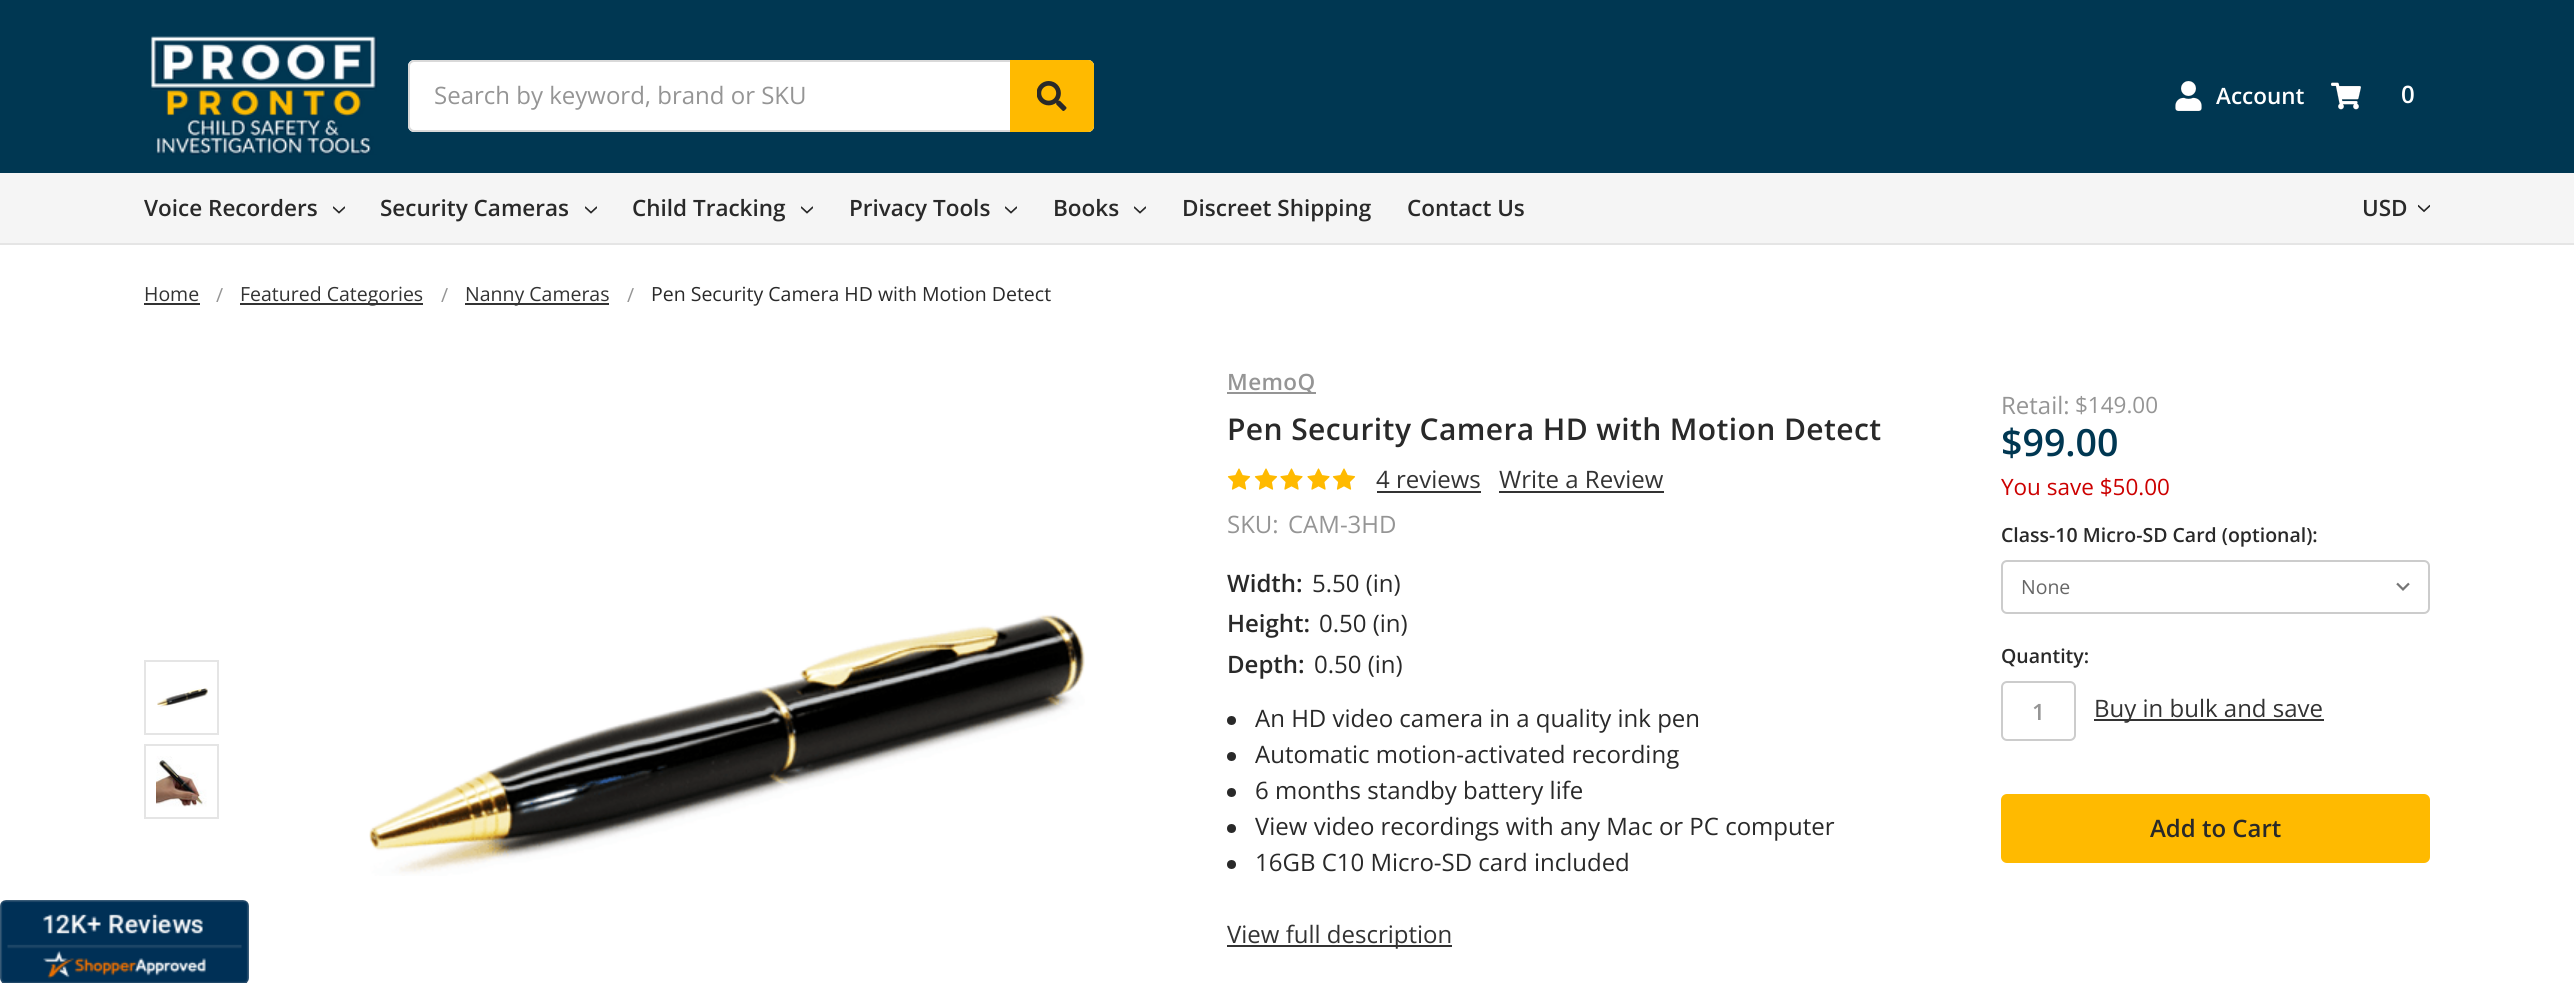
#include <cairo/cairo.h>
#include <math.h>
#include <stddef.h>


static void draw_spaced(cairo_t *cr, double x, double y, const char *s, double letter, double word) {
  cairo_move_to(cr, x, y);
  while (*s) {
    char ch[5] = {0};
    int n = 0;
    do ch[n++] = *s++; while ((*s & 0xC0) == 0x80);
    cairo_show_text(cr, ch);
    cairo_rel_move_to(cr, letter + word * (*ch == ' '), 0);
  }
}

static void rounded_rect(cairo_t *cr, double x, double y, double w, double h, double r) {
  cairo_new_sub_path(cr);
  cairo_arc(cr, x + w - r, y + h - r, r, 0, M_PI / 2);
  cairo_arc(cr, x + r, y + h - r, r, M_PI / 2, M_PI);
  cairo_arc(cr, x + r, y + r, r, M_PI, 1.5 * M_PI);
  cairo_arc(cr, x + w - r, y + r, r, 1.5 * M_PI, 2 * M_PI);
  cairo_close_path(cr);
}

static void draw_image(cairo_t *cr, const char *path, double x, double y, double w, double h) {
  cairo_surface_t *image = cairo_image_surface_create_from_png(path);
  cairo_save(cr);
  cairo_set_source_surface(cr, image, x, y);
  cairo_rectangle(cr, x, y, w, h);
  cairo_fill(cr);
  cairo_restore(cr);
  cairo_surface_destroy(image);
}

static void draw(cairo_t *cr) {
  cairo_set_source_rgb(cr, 1, 1, 1);
  cairo_paint(cr);
  cairo_set_source_rgb(cr, 0, 55 / 255.0, 82 / 255.0);
  cairo_rectangle(cr, 0, 0, 2574, 173);
  cairo_fill(cr);
  cairo_set_source_rgb(cr, 229 / 255.0, 229 / 255.0, 229 / 255.0);
  cairo_rectangle(cr, 0, 243, 2574, 2);
  cairo_fill(cr);
  draw_image(cr, "images/1.png", 150, 36, 227, 119);
  cairo_set_source_rgb(cr, 1, 1, 1);
  rounded_rect(cr, 408, 60, 686, 72, 6);
  cairo_fill(cr);
  cairo_set_source_rgb(cr, 217 / 255.0, 217 / 255.0, 217 / 255.0);
  cairo_set_fill_rule(cr, CAIRO_FILL_RULE_EVEN_ODD);
  cairo_new_path(cr);
  cairo_move_to(cr, 414, 60);
  cairo_curve_to(cr, 411, 60, 408, 63, 408, 66);
  cairo_line_to(cr, 408, 126);
  cairo_curve_to(cr, 408, 129, 411, 132, 414, 132);
  cairo_line_to(cr, 1088, 132);
  cairo_curve_to(cr, 1091, 132, 1094, 129, 1094, 126);
  cairo_line_to(cr, 1094, 66);
  cairo_curve_to(cr, 1094, 63, 1091, 60, 1088, 60);
  cairo_close_path(cr);
  cairo_move_to(cr, 414, 62);
  cairo_curve_to(cr, 412, 62, 410, 64, 410, 66);
  cairo_line_to(cr, 410, 126);
  cairo_curve_to(cr, 410, 128, 412, 130, 414, 130);
  cairo_line_to(cr, 1092, 130);
  cairo_line_to(cr, 1092, 62);
  cairo_close_path(cr);
  cairo_fill(cr);
  cairo_set_source_rgb(cr, 1, 186 / 255.0, 0);
  cairo_new_path(cr);
  cairo_move_to(cr, 1010, 60);
  cairo_line_to(cr, 1088, 60);
  cairo_curve_to(cr, 1091.5, 60, 1094, 62.5, 1094, 66);
  cairo_line_to(cr, 1094, 126);
  cairo_curve_to(cr, 1094, 129.5, 1091.5, 132, 1088, 132);
  cairo_line_to(cr, 1010, 132);
  cairo_close_path(cr);
  cairo_fill(cr);
  draw_image(cr, "images/2.png", 1037, 81, 30, 30);
  draw_image(cr, "images/3.png", 2175, 81, 27, 30);
  draw_image(cr, "images/4.png", 2331, 82, 30, 28);
  cairo_set_source_rgb(cr, 245 / 255.0, 245 / 255.0, 245 / 255.0);
  cairo_rectangle(cr, 0, 173, 2574, 70);
  cairo_fill(cr);
  draw_image(cr, "images/5.png", 333, 206, 12, 8);
  draw_image(cr, "images/5.png", 585, 206, 12, 8);
  draw_image(cr, "images/5.png", 801, 206, 12, 8);
  draw_image(cr, "images/5.png", 1005, 206, 12, 8);
  draw_image(cr, "images/5.png", 1134, 206, 12, 8);
  draw_image(cr, "images/6.png", 2418, 204, 12, 9);
  draw_image(cr, "images/7.png", 0, 900, 249, 83);
  cairo_set_source_rgb(cr, 51 / 255.0, 51 / 255.0, 51 / 255.0);
  cairo_rectangle(cr, 144, 303, 56, 2);
  cairo_fill(cr);
  cairo_rectangle(cr, 240, 303, 183, 2);
  cairo_fill(cr);
  cairo_rectangle(cr, 465, 303, 144, 2);
  cairo_fill(cr);
  cairo_set_source_rgb(cr, 149 / 255.0, 149 / 255.0, 149 / 255.0);
  cairo_rectangle(cr, 1227, 392, 89, 2);
  cairo_fill(cr);
  draw_image(cr, "images/8.png", 1227, 468, 24, 22);
  draw_image(cr, "images/8.png", 1254, 468, 24, 22);
  draw_image(cr, "images/9.png", 1280, 468, 23, 22);
  draw_image(cr, "images/9.png", 1307, 468, 23, 22);
  draw_image(cr, "images/8.png", 1332, 468, 24, 22);
  cairo_set_source_rgb(cr, 51 / 255.0, 51 / 255.0, 51 / 255.0);
  cairo_rectangle(cr, 1377, 491, 104, 2);
  cairo_fill(cr);
  cairo_rectangle(cr, 1499, 491, 165, 2);
  cairo_fill(cr);
  cairo_rectangle(cr, 145, 661, 73, 73);
  cairo_set_source_rgb(cr, 229 / 255.0, 229 / 255.0, 229 / 255.0);
  cairo_stroke(cr);
  draw_image(cr, "images/10.png", 157, 688, 51, 19);
  cairo_rectangle(cr, 145, 745, 73, 73);
  cairo_stroke(cr);
  draw_image(cr, "images/11.png", 156, 756, 51, 51);
  draw_image(cr, "images/12.png", 369, 614, 716, 262);
  cairo_set_source_rgb(cr, 41 / 255.0, 41 / 255.0, 41 / 255.0);
  cairo_arc(cr, 1231.5, 720.5, 4.5, 0, 2 * M_PI);
  cairo_fill(cr);
  cairo_arc(cr, 1231.5, 756.5, 4.5, 0, 2 * M_PI);
  cairo_fill(cr);
  cairo_arc(cr, 1231.5, 792.5, 4.5, 0, 2 * M_PI);
  cairo_fill(cr);
  cairo_arc(cr, 1231.5, 828.5, 4.5, 0, 2 * M_PI);
  cairo_fill(cr);
  cairo_arc(cr, 1231.5, 864.5, 4.5, 0, 2 * M_PI);
  cairo_fill(cr);
  cairo_set_source_rgb(cr, 51 / 255.0, 51 / 255.0, 51 / 255.0);
  cairo_rectangle(cr, 1227, 945, 225, 2);
  cairo_fill(cr);
  draw_image(cr, "images/13.png", 2396, 582, 14, 9);
  rounded_rect(cr, 2002, 561, 427, 52, 5);
  cairo_set_source_rgb(cr, 204 / 255.0, 204 / 255.0, 204 / 255.0);
  cairo_stroke(cr);
  rounded_rect(cr, 2002, 682, 73, 58, 5);
  cairo_stroke(cr);
  cairo_set_source_rgb(cr, 51 / 255.0, 51 / 255.0, 51 / 255.0);
  cairo_rectangle(cr, 2094, 719, 230, 2);
  cairo_fill(cr);
  cairo_set_source_rgb(cr, 1, 186 / 255.0, 0);
  rounded_rect(cr, 2002, 795, 427, 67, 5);
  cairo_fill_preserve(cr);
  cairo_stroke(cr);
  cairo_select_font_face(cr, "Open Sans", CAIRO_FONT_SLANT_NORMAL, CAIRO_FONT_WEIGHT_NORMAL);
  cairo_set_font_size(cr, 24);
  cairo_set_source_rgb(cr, 149 / 255.0, 149 / 255.0, 149 / 255.0);
  cairo_move_to(cr, 434, 104);
  cairo_show_text(cr, "Search by keyword, brand or SKU");
  cairo_select_font_face(cr, "Open Sans SemiBold", CAIRO_FONT_SLANT_NORMAL, CAIRO_FONT_WEIGHT_NORMAL);
  cairo_set_font_size(cr, 22.5);
  cairo_set_source_rgb(cr, 1, 1, 1);
  cairo_move_to(cr, 2216, 104);
  cairo_show_text(cr, "Account");
  cairo_set_font_size(cr, 24);
  cairo_move_to(cr, 2401, 103);
  cairo_show_text(cr, "0");
  cairo_set_font_size(cr, 22.5);
  cairo_set_source_rgb(cr, 41 / 255.0, 41 / 255.0, 41 / 255.0);
  cairo_move_to(cr, 144, 216);
  cairo_show_text(cr, "Voice Recorders");
  cairo_move_to(cr, 380, 216);
  cairo_show_text(cr, "Security Cameras");
  cairo_move_to(cr, 632, 216);
  cairo_show_text(cr, "Child Tracking");
  cairo_move_to(cr, 849, 216);
  cairo_show_text(cr, "Privacy Tools");
  cairo_move_to(cr, 1053, 216);
  cairo_show_text(cr, "Books");
  cairo_move_to(cr, 1182, 216);
  cairo_show_text(cr, "Discreet Shipping");
  cairo_move_to(cr, 1407, 216);
  cairo_show_text(cr, "Contact Us");
  cairo_move_to(cr, 2362, 216);
  cairo_show_text(cr, "USD");
  cairo_select_font_face(cr, "Open Sans", CAIRO_FONT_SLANT_NORMAL, CAIRO_FONT_WEIGHT_NORMAL);
  cairo_set_font_size(cr, 19.5);
  cairo_set_source_rgb(cr, 51 / 255.0, 51 / 255.0, 51 / 255.0);
  cairo_move_to(cr, 144, 301);
  cairo_show_text(cr, "Home");
  cairo_set_source_rgb(cr, 149 / 255.0, 149 / 255.0, 149 / 255.0);
  cairo_move_to(cr, 216, 302);
  cairo_show_text(cr, "/");
  cairo_set_source_rgb(cr, 51 / 255.0, 51 / 255.0, 51 / 255.0);
  cairo_move_to(cr, 240, 301);
  cairo_show_text(cr, "Featured Categories");
  cairo_set_source_rgb(cr, 149 / 255.0, 149 / 255.0, 149 / 255.0);
  cairo_move_to(cr, 441, 302);
  cairo_show_text(cr, "/");
  cairo_set_source_rgb(cr, 51 / 255.0, 51 / 255.0, 51 / 255.0);
  cairo_move_to(cr, 465, 301);
  cairo_show_text(cr, "Nanny Cameras");
  cairo_set_source_rgb(cr, 149 / 255.0, 149 / 255.0, 149 / 255.0);
  cairo_move_to(cr, 627, 302);
  cairo_show_text(cr, "/");
  cairo_set_source_rgb(cr, 41 / 255.0, 41 / 255.0, 41 / 255.0);
  cairo_move_to(cr, 651, 301);
  cairo_show_text(cr, "Pen Security Camera HD with Motion Detect");
  cairo_select_font_face(cr, "Open Sans SemiBold", CAIRO_FONT_SLANT_NORMAL, CAIRO_FONT_WEIGHT_NORMAL);
  cairo_set_font_size(cr, 22.5);
  cairo_set_source_rgb(cr, 149 / 255.0, 149 / 255.0, 149 / 255.0);
  draw_spaced(cr, 1227, 390, "MemoQ", 0.4, 0);
  cairo_set_font_size(cr, 30);
  cairo_set_source_rgb(cr, 41 / 255.0, 41 / 255.0, 41 / 255.0);
  draw_spaced(cr, 1227, 440, "Pen Security Camera HD with Motion Detect", 0.4, 0);
  cairo_select_font_face(cr, "Open Sans", CAIRO_FONT_SLANT_NORMAL, CAIRO_FONT_WEIGHT_NORMAL);
  cairo_set_font_size(cr, 24);
  cairo_set_source_rgb(cr, 51 / 255.0, 51 / 255.0, 51 / 255.0);
  cairo_move_to(cr, 1376, 488);
  cairo_show_text(cr, "4 reviews");
  cairo_move_to(cr, 1499, 488);
  cairo_show_text(cr, "Write a Review");
  cairo_set_source_rgb(cr, 149 / 255.0, 149 / 255.0, 149 / 255.0);
  cairo_move_to(cr, 1227, 533);
  cairo_show_text(cr, "SKU:");
  cairo_move_to(cr, 1288, 533);
  cairo_show_text(cr, "CAM-3HD");
  cairo_move_to(cr, 2001, 414);
  cairo_show_text(cr, "Retail:");
  cairo_set_font_size(cr, 22.5);
  cairo_move_to(cr, 2075, 413);
  cairo_show_text(cr, "$149.00");
  cairo_select_font_face(cr, "Open Sans SemiBold", CAIRO_FONT_SLANT_NORMAL, CAIRO_FONT_WEIGHT_NORMAL);
  cairo_set_font_size(cr, 37.5);
  cairo_set_source_rgb(cr, 0, 55 / 255.0, 82 / 255.0);
  cairo_move_to(cr, 2001, 456);
  cairo_show_text(cr, "$99.00");
  cairo_select_font_face(cr, "Open Sans", CAIRO_FONT_SLANT_NORMAL, CAIRO_FONT_WEIGHT_NORMAL);
  cairo_set_font_size(cr, 22.5);
  cairo_set_source_rgb(cr, 204 / 255.0, 0, 0);
  cairo_move_to(cr, 2001, 495);
  cairo_show_text(cr, "You save $50.00");
  cairo_select_font_face(cr, "Open Sans SemiBold", CAIRO_FONT_SLANT_NORMAL, CAIRO_FONT_WEIGHT_NORMAL);
  cairo_set_font_size(cr, 24);
  cairo_set_source_rgb(cr, 41 / 255.0, 41 / 255.0, 41 / 255.0);
  cairo_move_to(cr, 1227, 592);
  cairo_show_text(cr, "Width:");
  cairo_select_font_face(cr, "Open Sans", CAIRO_FONT_SLANT_NORMAL, CAIRO_FONT_WEIGHT_NORMAL);
  cairo_move_to(cr, 1312, 592);
  cairo_show_text(cr, "5.50 (in)");
  cairo_select_font_face(cr, "Open Sans SemiBold", CAIRO_FONT_SLANT_NORMAL, CAIRO_FONT_WEIGHT_NORMAL);
  cairo_move_to(cr, 1227, 632);
  cairo_show_text(cr, "Height:");
  cairo_select_font_face(cr, "Open Sans", CAIRO_FONT_SLANT_NORMAL, CAIRO_FONT_WEIGHT_NORMAL);
  cairo_move_to(cr, 1319, 632);
  cairo_show_text(cr, "0.50 (in)");
  cairo_select_font_face(cr, "Open Sans SemiBold", CAIRO_FONT_SLANT_NORMAL, CAIRO_FONT_WEIGHT_NORMAL);
  cairo_move_to(cr, 1227, 673);
  cairo_show_text(cr, "Depth:");
  cairo_select_font_face(cr, "Open Sans", CAIRO_FONT_SLANT_NORMAL, CAIRO_FONT_WEIGHT_NORMAL);
  cairo_move_to(cr, 1314, 673);
  cairo_show_text(cr, "0.50 (in)");
  cairo_move_to(cr, 1255, 727);
  cairo_show_text(cr, "An HD video camera in a quality ink pen");
  cairo_move_to(cr, 1255, 763);
  cairo_show_text(cr, "Automatic motion-activated recording");
  cairo_move_to(cr, 1255, 799);
  cairo_show_text(cr, "6 months standby battery life");
  cairo_move_to(cr, 1255, 835);
  cairo_show_text(cr, "View video recordings with any Mac or PC computer");
  cairo_move_to(cr, 1255, 871);
  cairo_show_text(cr, "16GB C10 Micro-SD card included");
  cairo_set_source_rgb(cr, 51 / 255.0, 51 / 255.0, 51 / 255.0);
  cairo_move_to(cr, 1227, 943);
  cairo_show_text(cr, "View full description");
  cairo_select_font_face(cr, "Open Sans SemiBold", CAIRO_FONT_SLANT_NORMAL, CAIRO_FONT_WEIGHT_NORMAL);
  cairo_set_font_size(cr, 19.5);
  cairo_set_source_rgb(cr, 41 / 255.0, 41 / 255.0, 41 / 255.0);
  cairo_move_to(cr, 2001, 542);
  cairo_show_text(cr, "Class-10 Micro-SD Card (optional):");
  cairo_select_font_face(cr, "Open Sans", CAIRO_FONT_SLANT_NORMAL, CAIRO_FONT_WEIGHT_NORMAL);
  cairo_set_source_rgb(cr, 102 / 255.0, 102 / 255.0, 102 / 255.0);
  cairo_move_to(cr, 2021, 594);
  cairo_show_text(cr, "None");
  cairo_select_font_face(cr, "Open Sans SemiBold", CAIRO_FONT_SLANT_NORMAL, CAIRO_FONT_WEIGHT_NORMAL);
  cairo_set_source_rgb(cr, 41 / 255.0, 41 / 255.0, 41 / 255.0);
  cairo_move_to(cr, 2001, 663);
  cairo_show_text(cr, "Quantity:");
  cairo_set_font_size(cr, 22.5);
  cairo_set_source_rgb(cr, 149 / 255.0, 149 / 255.0, 149 / 255.0);
  cairo_move_to(cr, 2032, 720);
  cairo_show_text(cr, "1");
  cairo_select_font_face(cr, "Open Sans", CAIRO_FONT_SLANT_NORMAL, CAIRO_FONT_WEIGHT_NORMAL);
  cairo_set_font_size(cr, 24);
  cairo_set_source_rgb(cr, 51 / 255.0, 51 / 255.0, 51 / 255.0);
  cairo_move_to(cr, 2094, 717);
  cairo_show_text(cr, "Buy in bulk and save");
  cairo_select_font_face(cr, "Open Sans SemiBold", CAIRO_FONT_SLANT_NORMAL, CAIRO_FONT_WEIGHT_NORMAL);
  cairo_set_source_rgb(cr, 41 / 255.0, 41 / 255.0, 41 / 255.0);
  cairo_move_to(cr, 2150, 837);
  cairo_show_text(cr, "Add to Cart");
}

int main(void) {
  cairo_surface_t *surface = cairo_image_surface_create(CAIRO_FORMAT_RGB24, 2574, 983);
  cairo_t *cr = cairo_create(surface);
  cairo_font_options_t *options = cairo_font_options_create();
  cairo_font_options_set_hint_metrics(options, CAIRO_HINT_METRICS_OFF);
  cairo_font_options_set_hint_style(options, CAIRO_HINT_STYLE_NONE);
  cairo_set_font_options(cr, options);
  cairo_set_miter_limit(cr, 4);
  draw(cr);
  cairo_surface_write_to_png(surface, "out.png");
  cairo_font_options_destroy(options);
  cairo_destroy(cr);
  cairo_surface_destroy(surface);
  return 0;
}
